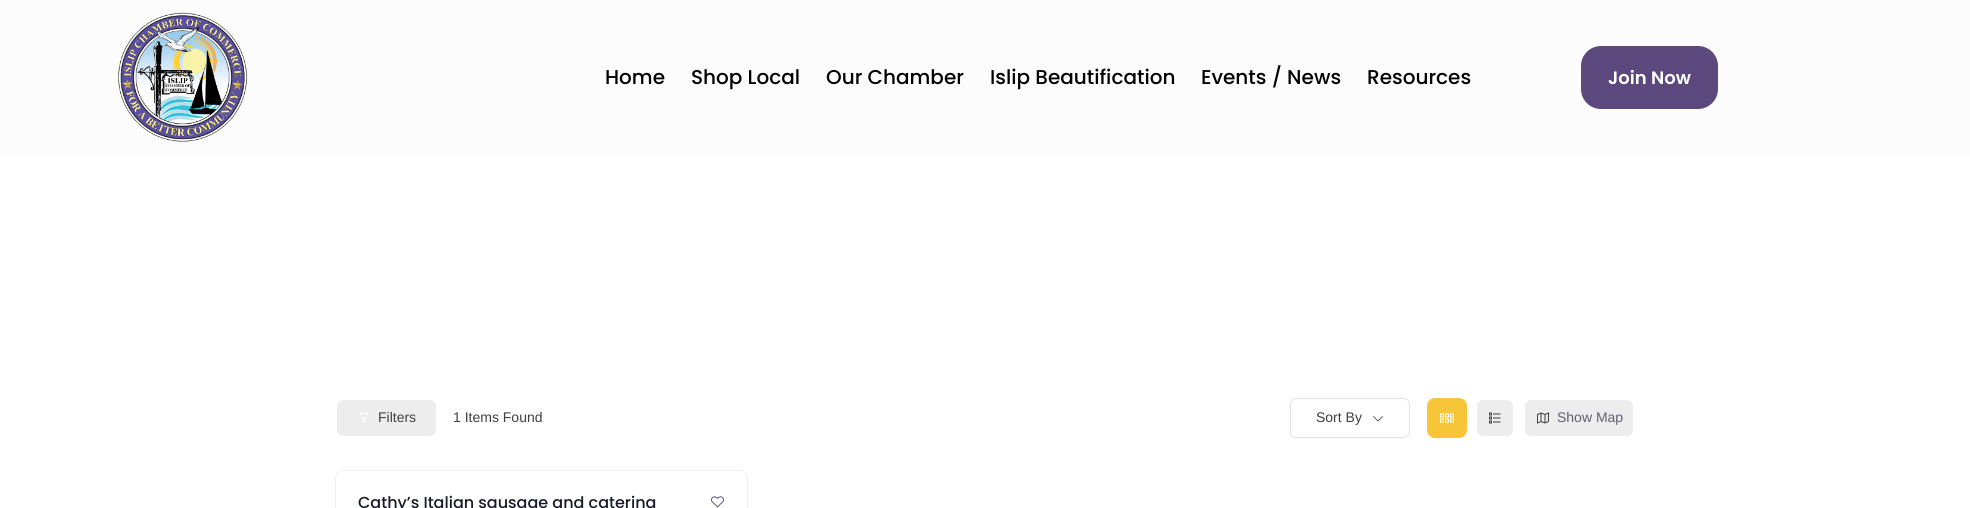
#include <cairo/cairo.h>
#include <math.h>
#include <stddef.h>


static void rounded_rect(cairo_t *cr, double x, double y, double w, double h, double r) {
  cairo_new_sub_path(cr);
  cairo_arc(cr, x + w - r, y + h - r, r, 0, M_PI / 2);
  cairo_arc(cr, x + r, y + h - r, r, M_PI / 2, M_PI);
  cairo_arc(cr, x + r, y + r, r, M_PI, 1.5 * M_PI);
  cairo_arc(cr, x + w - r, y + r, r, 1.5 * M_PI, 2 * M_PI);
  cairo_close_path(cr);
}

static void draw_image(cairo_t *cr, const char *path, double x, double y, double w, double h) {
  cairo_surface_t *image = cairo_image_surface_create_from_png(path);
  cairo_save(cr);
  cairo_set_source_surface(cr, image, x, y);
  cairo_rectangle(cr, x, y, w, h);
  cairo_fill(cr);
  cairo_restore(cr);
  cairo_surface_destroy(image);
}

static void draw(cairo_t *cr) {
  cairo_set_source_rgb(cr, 1, 1, 1);
  cairo_paint(cr);
  cairo_set_source_rgb(cr, 252 / 255.0, 252 / 255.0, 252 / 255.0);
  cairo_rectangle(cr, 0, 0, 1970, 155);
  cairo_fill(cr);
  draw_image(cr, "images/1.png", 118, 12, 130, 130);
  cairo_set_source_rgb(cr, 91 / 255.0, 72 / 255.0, 125 / 255.0);
  rounded_rect(cr, 1582.5, 47.5, 134, 60, 18.5);
  cairo_fill_preserve(cr);
  cairo_set_line_width(cr, 3);
  cairo_stroke(cr);
  cairo_set_source_rgb(cr, 237 / 255.0, 237 / 255.0, 237 / 255.0);
  rounded_rect(cr, 336, 399, 101, 38, 7);
  cairo_fill_preserve(cr);
  cairo_set_source_rgb(cr, 1, 1, 1);
  cairo_set_line_width(cr, 2);
  cairo_stroke(cr);
  draw_image(cr, "images/2.png", 359, 412, 10, 11);
  rounded_rect(cr, 1290.5, 398.5, 119, 39, 5.5);
  cairo_set_source_rgb(cr, 225 / 255.0, 228 / 255.0, 236 / 255.0);
  cairo_set_line_width(cr, 1);
  cairo_stroke(cr);
  draw_image(cr, "images/3.png", 1373, 416, 10, 6);
  cairo_set_source_rgb(cr, 247 / 255.0, 197 / 255.0, 56 / 255.0);
  rounded_rect(cr, 1428, 399, 38, 38, 7);
  cairo_fill_preserve(cr);
  cairo_set_line_width(cr, 2);
  cairo_stroke(cr);
  draw_image(cr, "images/4.png", 1440, 413, 14, 10);
  cairo_set_source_rgb(cr, 237 / 255.0, 237 / 255.0, 237 / 255.0);
  rounded_rect(cr, 1476, 399, 38, 38, 7);
  cairo_fill_preserve(cr);
  cairo_set_source_rgb(cr, 1, 1, 1);
  cairo_stroke(cr);
  draw_image(cr, "images/5.png", 1489, 412, 12, 12);
  cairo_set_source_rgb(cr, 237 / 255.0, 237 / 255.0, 237 / 255.0);
  rounded_rect(cr, 1524, 399, 110, 38, 7);
  cairo_fill_preserve(cr);
  cairo_set_source_rgb(cr, 1, 1, 1);
  cairo_stroke(cr);
  draw_image(cr, "images/6.png", 1537, 412, 12, 12);
  rounded_rect(cr, 335.5, 470.5, 412, 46, 7.5);
  cairo_set_source_rgb(cr, 239 / 255.0, 241 / 255.0, 246 / 255.0);
  cairo_set_line_width(cr, 1);
  cairo_stroke(cr);
  draw_image(cr, "images/7.png", 711, 496, 13, 12);
  cairo_select_font_face(cr, "Poppins Medium", CAIRO_FONT_SLANT_NORMAL, CAIRO_FONT_WEIGHT_NORMAL);
  cairo_set_font_size(cr, 20);
  cairo_set_source_rgb(cr, 0, 0, 0);
  cairo_move_to(cr, 605, 84);
  cairo_show_text(cr, "Home");
  cairo_move_to(cr, 691, 84);
  cairo_show_text(cr, "Shop Local");
  cairo_move_to(cr, 826, 84);
  cairo_show_text(cr, "Our Chamber");
  cairo_move_to(cr, 990, 84);
  cairo_show_text(cr, "Islip Beautification");
  cairo_move_to(cr, 1201, 84);
  cairo_show_text(cr, "Events / News");
  cairo_move_to(cr, 1367, 84);
  cairo_show_text(cr, "Resources");
  cairo_select_font_face(cr, "Poppins SemiBold", CAIRO_FONT_SLANT_NORMAL, CAIRO_FONT_WEIGHT_NORMAL);
  cairo_set_font_size(cr, 18);
  cairo_set_source_rgb(cr, 1, 1, 1);
  cairo_move_to(cr, 1608, 84);
  cairo_show_text(cr, "Join Now");
  cairo_select_font_face(cr, "Liberation Sans", CAIRO_FONT_SLANT_NORMAL, CAIRO_FONT_WEIGHT_NORMAL);
  cairo_set_font_size(cr, 14);
  cairo_set_source_rgb(cr, 64 / 255.0, 64 / 255.0, 64 / 255.0);
  cairo_move_to(cr, 378, 422);
  cairo_show_text(cr, "Filters");
  cairo_move_to(cr, 453, 422);
  cairo_show_text(cr, "1 Items Found");
  cairo_move_to(cr, 1316, 422);
  cairo_show_text(cr, "Sort By");
  cairo_set_source_rgb(cr, 96 / 255.0, 95 / 255.0, 116 / 255.0);
  cairo_move_to(cr, 1557, 422);
  cairo_show_text(cr, "Show Map");
  cairo_select_font_face(cr, "Poppins Medium", CAIRO_FONT_SLANT_NORMAL, CAIRO_FONT_WEIGHT_NORMAL);
  cairo_set_font_size(cr, 16);
  cairo_set_source_rgb(cr, 26 / 255.0, 27 / 255.0, 41 / 255.0);
  cairo_move_to(cr, 358, 508);
  cairo_show_text(cr, "Cathy’s Italian sausage and catering");
}

int main(void) {
  cairo_surface_t *surface = cairo_image_surface_create(CAIRO_FORMAT_RGB24, 1970, 508);
  cairo_t *cr = cairo_create(surface);
  cairo_font_options_t *options = cairo_font_options_create();
  cairo_font_options_set_hint_metrics(options, CAIRO_HINT_METRICS_OFF);
  cairo_font_options_set_hint_style(options, CAIRO_HINT_STYLE_NONE);
  cairo_set_font_options(cr, options);
  cairo_set_miter_limit(cr, 4);
  draw(cr);
  cairo_surface_write_to_png(surface, "out.png");
  cairo_font_options_destroy(options);
  cairo_destroy(cr);
  cairo_surface_destroy(surface);
  return 0;
}
